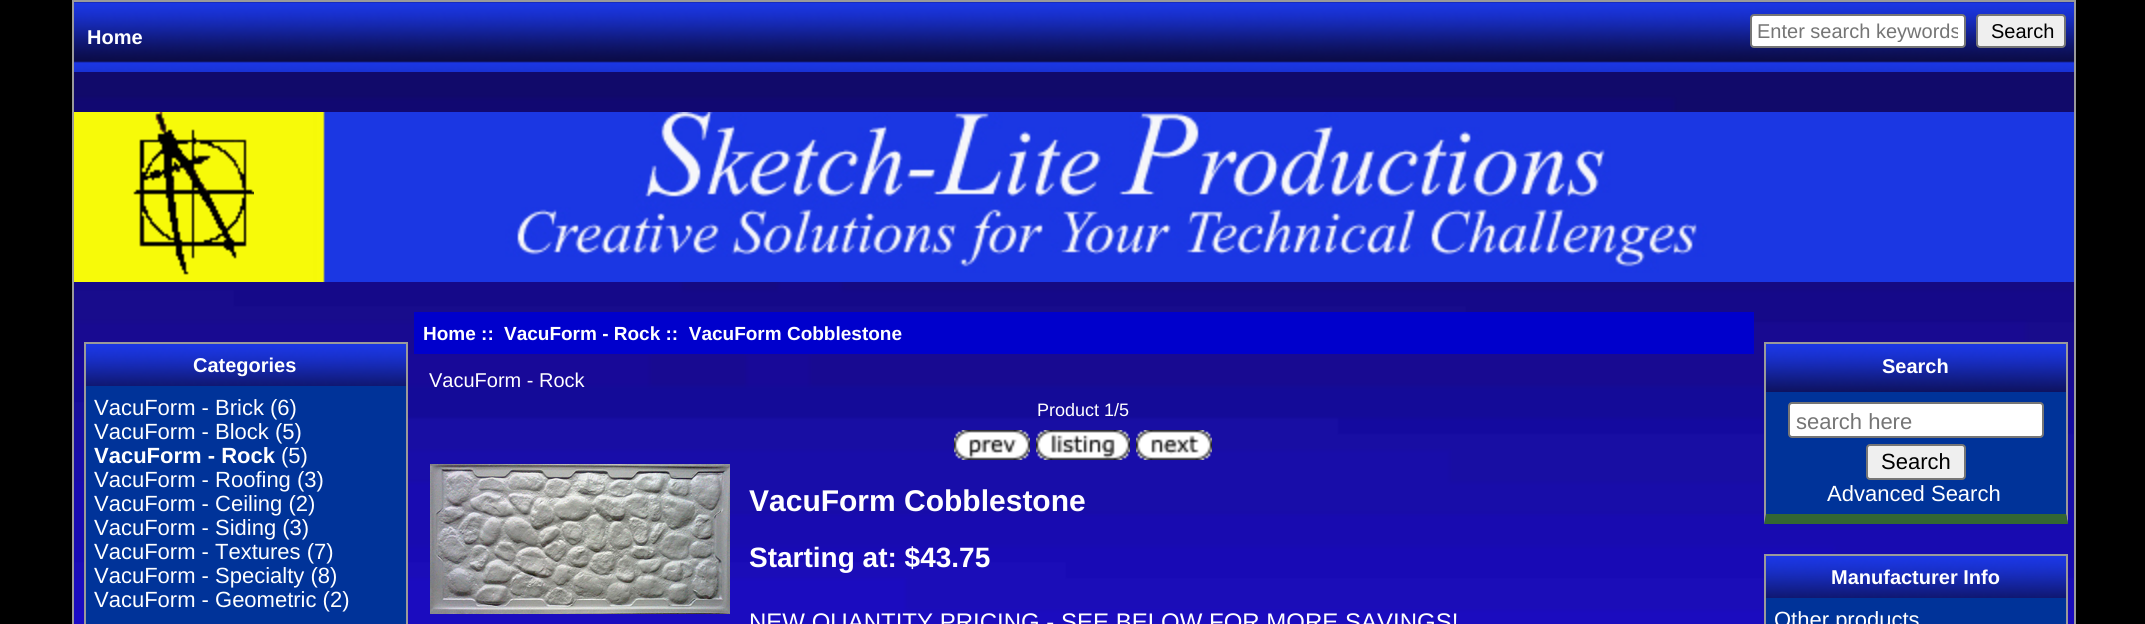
#include <cairo/cairo.h>
#include <math.h>
#include <stddef.h>


static void rounded_rect(cairo_t *cr, double x, double y, double w, double h, double r) {
  cairo_new_sub_path(cr);
  cairo_arc(cr, x + w - r, y + h - r, r, 0, M_PI / 2);
  cairo_arc(cr, x + r, y + h - r, r, M_PI / 2, M_PI);
  cairo_arc(cr, x + r, y + r, r, M_PI, 1.5 * M_PI);
  cairo_arc(cr, x + w - r, y + r, r, 1.5 * M_PI, 2 * M_PI);
  cairo_close_path(cr);
}

static void draw_image(cairo_t *cr, const char *path, double x, double y, double w, double h) {
  cairo_surface_t *image = cairo_image_surface_create_from_png(path);
  cairo_save(cr);
  cairo_set_source_surface(cr, image, x, y);
  cairo_rectangle(cr, x, y, w, h);
  cairo_fill(cr);
  cairo_restore(cr);
  cairo_surface_destroy(image);
}

static void draw(cairo_t *cr) {
  cairo_set_source_rgb(cr, 0, 0, 0);
  cairo_paint(cr);
  draw_image(cr, "images/1.png", 74, 72, 2000, 552);
  cairo_rectangle(cr, 73, 1, 2002, 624);
  cairo_set_source_rgb(cr, 154 / 255.0, 154 / 255.0, 154 / 255.0);
  cairo_stroke(cr);
  draw_image(cr, "images/2.png", 74, 2, 2000, 70);
  cairo_set_source_rgb(cr, 1, 1, 1);
  rounded_rect(cr, 1751, 15, 214, 32, 3);
  cairo_fill_preserve(cr);
  cairo_set_source_rgb(cr, 118 / 255.0, 118 / 255.0, 118 / 255.0);
  cairo_stroke(cr);
  cairo_set_source_rgb(cr, 239 / 255.0, 239 / 255.0, 239 / 255.0);
  rounded_rect(cr, 1977, 15, 88, 32, 3);
  cairo_fill_preserve(cr);
  cairo_set_source_rgb(cr, 118 / 255.0, 118 / 255.0, 118 / 255.0);
  cairo_stroke(cr);
  draw_image(cr, "images/3.png", 74, 112, 2000, 170);
  draw_image(cr, "images/4.png", 133, 112, 121, 163);
  cairo_set_source_rgb(cr, 154 / 255.0, 154 / 255.0, 154 / 255.0);
  cairo_rectangle(cr, 84, 342, 324, 2);
  cairo_fill(cr);
  cairo_new_path(cr);
  cairo_move_to(cr, 408, 342);
  cairo_line_to(cr, 408, 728);
  cairo_line_to(cr, 406, 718);
  cairo_line_to(cr, 406, 344);
  cairo_close_path(cr);
  cairo_fill(cr);
  cairo_new_path(cr);
  cairo_move_to(cr, 84, 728);
  cairo_line_to(cr, 84, 342);
  cairo_line_to(cr, 86, 344);
  cairo_line_to(cr, 86, 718);
  cairo_close_path(cr);
  cairo_fill(cr);
  draw_image(cr, "images/5.png", 86, 344, 320, 42);
  cairo_set_source_rgb(cr, 0, 51 / 255.0, 153 / 255.0);
  cairo_rectangle(cr, 86, 386, 320, 238);
  cairo_fill(cr);
  cairo_set_source_rgb(cr, 0, 0, 204 / 255.0);
  cairo_rectangle(cr, 414, 312, 1340, 42);
  cairo_fill(cr);
  draw_image(cr, "images/6.png", 954, 430, 76, 30);
  draw_image(cr, "images/7.png", 1036, 430, 94, 30);
  draw_image(cr, "images/8.png", 1136, 430, 76, 30);
  draw_image(cr, "images/9.png", 430, 464, 300, 150);
  cairo_set_source_rgb(cr, 154 / 255.0, 154 / 255.0, 154 / 255.0);
  cairo_rectangle(cr, 1764, 342, 304, 2);
  cairo_fill(cr);
  cairo_new_path(cr);
  cairo_move_to(cr, 2068, 342);
  cairo_line_to(cr, 2068, 524);
  cairo_line_to(cr, 2066, 514);
  cairo_line_to(cr, 2066, 344);
  cairo_close_path(cr);
  cairo_fill(cr);
  cairo_set_source_rgb(cr, 51 / 255.0, 102 / 255.0, 51 / 255.0);
  cairo_new_path(cr);
  cairo_move_to(cr, 2068, 524);
  cairo_line_to(cr, 1764, 524);
  cairo_line_to(cr, 1766, 514);
  cairo_line_to(cr, 2066, 514);
  cairo_close_path(cr);
  cairo_fill(cr);
  cairo_set_source_rgb(cr, 154 / 255.0, 154 / 255.0, 154 / 255.0);
  cairo_new_path(cr);
  cairo_move_to(cr, 1764, 524);
  cairo_line_to(cr, 1764, 342);
  cairo_line_to(cr, 1766, 344);
  cairo_line_to(cr, 1766, 514);
  cairo_close_path(cr);
  cairo_fill(cr);
  draw_image(cr, "images/10.png", 1766, 344, 300, 48);
  cairo_set_source_rgb(cr, 0, 51 / 255.0, 153 / 255.0);
  cairo_rectangle(cr, 1766, 392, 300, 122);
  cairo_fill(cr);
  cairo_set_source_rgb(cr, 1, 1, 1);
  rounded_rect(cr, 1789, 403, 254, 34, 3);
  cairo_fill_preserve(cr);
  cairo_set_source_rgb(cr, 118 / 255.0, 118 / 255.0, 118 / 255.0);
  cairo_stroke(cr);
  cairo_set_source_rgb(cr, 239 / 255.0, 239 / 255.0, 239 / 255.0);
  rounded_rect(cr, 1867, 445, 98, 34, 3);
  cairo_fill_preserve(cr);
  cairo_set_source_rgb(cr, 118 / 255.0, 118 / 255.0, 118 / 255.0);
  cairo_stroke(cr);
  cairo_set_source_rgb(cr, 154 / 255.0, 154 / 255.0, 154 / 255.0);
  cairo_rectangle(cr, 1764, 554, 304, 2);
  cairo_fill(cr);
  cairo_new_path(cr);
  cairo_move_to(cr, 2068, 554);
  cairo_line_to(cr, 2068, 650);
  cairo_line_to(cr, 2066, 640);
  cairo_line_to(cr, 2066, 556);
  cairo_close_path(cr);
  cairo_fill(cr);
  cairo_new_path(cr);
  cairo_move_to(cr, 1764, 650);
  cairo_line_to(cr, 1764, 554);
  cairo_line_to(cr, 1766, 556);
  cairo_line_to(cr, 1766, 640);
  cairo_close_path(cr);
  cairo_fill(cr);
  draw_image(cr, "images/11.png", 1766, 556, 300, 42);
  cairo_set_source_rgb(cr, 0, 51 / 255.0, 153 / 255.0);
  cairo_rectangle(cr, 1766, 598, 300, 26);
  cairo_fill(cr);
  cairo_select_font_face(cr, "Liberation Sans", CAIRO_FONT_SLANT_NORMAL, CAIRO_FONT_WEIGHT_BOLD);
  cairo_set_font_size(cr, 20);
  cairo_set_source_rgb(cr, 1, 1, 1);
  cairo_move_to(cr, 87, 44);
  cairo_show_text(cr, "Home");
  cairo_save(cr);
  cairo_rectangle(cr, 1758, 20, 200, 22);
  cairo_clip(cr);
  cairo_select_font_face(cr, "Liberation Sans", CAIRO_FONT_SLANT_NORMAL, CAIRO_FONT_WEIGHT_NORMAL);
  cairo_set_source_rgb(cr, 117 / 255.0, 117 / 255.0, 117 / 255.0);
  cairo_move_to(cr, 1757, 38);
  cairo_show_text(cr, "Enter search keywords");
  cairo_restore(cr);
  cairo_select_font_face(cr, "Liberation Sans", CAIRO_FONT_SLANT_NORMAL, CAIRO_FONT_WEIGHT_NORMAL);
  cairo_set_source_rgb(cr, 0, 0, 0);
  cairo_move_to(cr, 1991, 38);
  cairo_show_text(cr, "Search");
  cairo_select_font_face(cr, "Liberation Sans", CAIRO_FONT_SLANT_NORMAL, CAIRO_FONT_WEIGHT_BOLD);
  cairo_set_source_rgb(cr, 1, 1, 1);
  cairo_move_to(cr, 193, 372);
  cairo_show_text(cr, "Categories");
  cairo_select_font_face(cr, "Liberation Sans", CAIRO_FONT_SLANT_NORMAL, CAIRO_FONT_WEIGHT_NORMAL);
  cairo_set_font_size(cr, 22);
  cairo_move_to(cr, 94, 415);
  cairo_show_text(cr, "VacuForm - Brick (6)");
  cairo_move_to(cr, 94, 439);
  cairo_show_text(cr, "VacuForm - Block (5)");
  cairo_select_font_face(cr, "Liberation Sans", CAIRO_FONT_SLANT_NORMAL, CAIRO_FONT_WEIGHT_BOLD);
  cairo_move_to(cr, 94, 463);
  cairo_show_text(cr, "VacuForm - Rock");
  cairo_select_font_face(cr, "Liberation Sans", CAIRO_FONT_SLANT_NORMAL, CAIRO_FONT_WEIGHT_NORMAL);
  cairo_move_to(cr, 281, 463);
  cairo_show_text(cr, "(5)");
  cairo_move_to(cr, 94, 487);
  cairo_show_text(cr, "VacuForm - Roofing (3)");
  cairo_move_to(cr, 94, 511);
  cairo_show_text(cr, "VacuForm - Ceiling (2)");
  cairo_move_to(cr, 94, 535);
  cairo_show_text(cr, "VacuForm - Siding (3)");
  cairo_move_to(cr, 94, 559);
  cairo_show_text(cr, "VacuForm - Textures (7)");
  cairo_move_to(cr, 94, 583);
  cairo_show_text(cr, "VacuForm - Specialty (8)");
  cairo_move_to(cr, 94, 607);
  cairo_show_text(cr, "VacuForm - Geometric (2)");
  cairo_select_font_face(cr, "Liberation Sans", CAIRO_FONT_SLANT_NORMAL, CAIRO_FONT_WEIGHT_BOLD);
  cairo_set_font_size(cr, 19);
  cairo_move_to(cr, 423, 340);
  cairo_show_text(cr, "Home ::");
  cairo_move_to(cr, 504, 340);
  cairo_show_text(cr, "VacuForm - Rock ::  VacuForm Cobblestone");
  cairo_select_font_face(cr, "Liberation Sans", CAIRO_FONT_SLANT_NORMAL, CAIRO_FONT_WEIGHT_NORMAL);
  cairo_set_font_size(cr, 20);
  cairo_move_to(cr, 429, 387);
  cairo_show_text(cr, "VacuForm - Rock");
  cairo_set_font_size(cr, 18);
  cairo_move_to(cr, 1037, 416);
  cairo_show_text(cr, "Product 1/5");
  cairo_select_font_face(cr, "Liberation Sans", CAIRO_FONT_SLANT_NORMAL, CAIRO_FONT_WEIGHT_BOLD);
  cairo_set_font_size(cr, 30);
  cairo_move_to(cr, 749, 511);
  cairo_show_text(cr, "VacuForm Cobblestone");
  cairo_set_font_size(cr, 28);
  cairo_move_to(cr, 749, 567);
  cairo_show_text(cr, "Starting at: $43.75");
  cairo_select_font_face(cr, "Liberation Sans", CAIRO_FONT_SLANT_NORMAL, CAIRO_FONT_WEIGHT_NORMAL);
  cairo_set_font_size(cr, 24);
  cairo_move_to(cr, 749, 630);
  cairo_show_text(cr, "NEW QUANTITY PRICING - SEE BELOW FOR MORE SAVINGS!");
  cairo_select_font_face(cr, "Liberation Sans", CAIRO_FONT_SLANT_NORMAL, CAIRO_FONT_WEIGHT_BOLD);
  cairo_set_font_size(cr, 20);
  cairo_move_to(cr, 1882, 373);
  cairo_show_text(cr, "Search");
  cairo_select_font_face(cr, "Liberation Sans", CAIRO_FONT_SLANT_NORMAL, CAIRO_FONT_WEIGHT_NORMAL);
  cairo_set_font_size(cr, 22);
  cairo_set_source_rgb(cr, 117 / 255.0, 117 / 255.0, 117 / 255.0);
  cairo_move_to(cr, 1796, 429);
  cairo_show_text(cr, "search here");
  cairo_set_source_rgb(cr, 0, 0, 0);
  cairo_move_to(cr, 1881, 469);
  cairo_show_text(cr, "Search");
  cairo_set_source_rgb(cr, 1, 1, 1);
  cairo_move_to(cr, 1827, 501);
  cairo_show_text(cr, "Advanced Search");
  cairo_select_font_face(cr, "Liberation Sans", CAIRO_FONT_SLANT_NORMAL, CAIRO_FONT_WEIGHT_BOLD);
  cairo_set_font_size(cr, 20);
  cairo_move_to(cr, 1831, 584);
  cairo_show_text(cr, "Manufacturer Info");
  cairo_select_font_face(cr, "Liberation Sans", CAIRO_FONT_SLANT_NORMAL, CAIRO_FONT_WEIGHT_NORMAL);
  cairo_set_font_size(cr, 22);
  cairo_move_to(cr, 1774, 627);
  cairo_show_text(cr, "Other products");
}

int main(void) {
  cairo_surface_t *surface = cairo_image_surface_create(CAIRO_FORMAT_RGB24, 2145, 624);
  cairo_t *cr = cairo_create(surface);
  cairo_font_options_t *options = cairo_font_options_create();
  cairo_font_options_set_hint_metrics(options, CAIRO_HINT_METRICS_OFF);
  cairo_font_options_set_hint_style(options, CAIRO_HINT_STYLE_NONE);
  cairo_set_font_options(cr, options);
  cairo_set_miter_limit(cr, 4);
  draw(cr);
  cairo_surface_write_to_png(surface, "out.png");
  cairo_font_options_destroy(options);
  cairo_destroy(cr);
  cairo_surface_destroy(surface);
  return 0;
}
